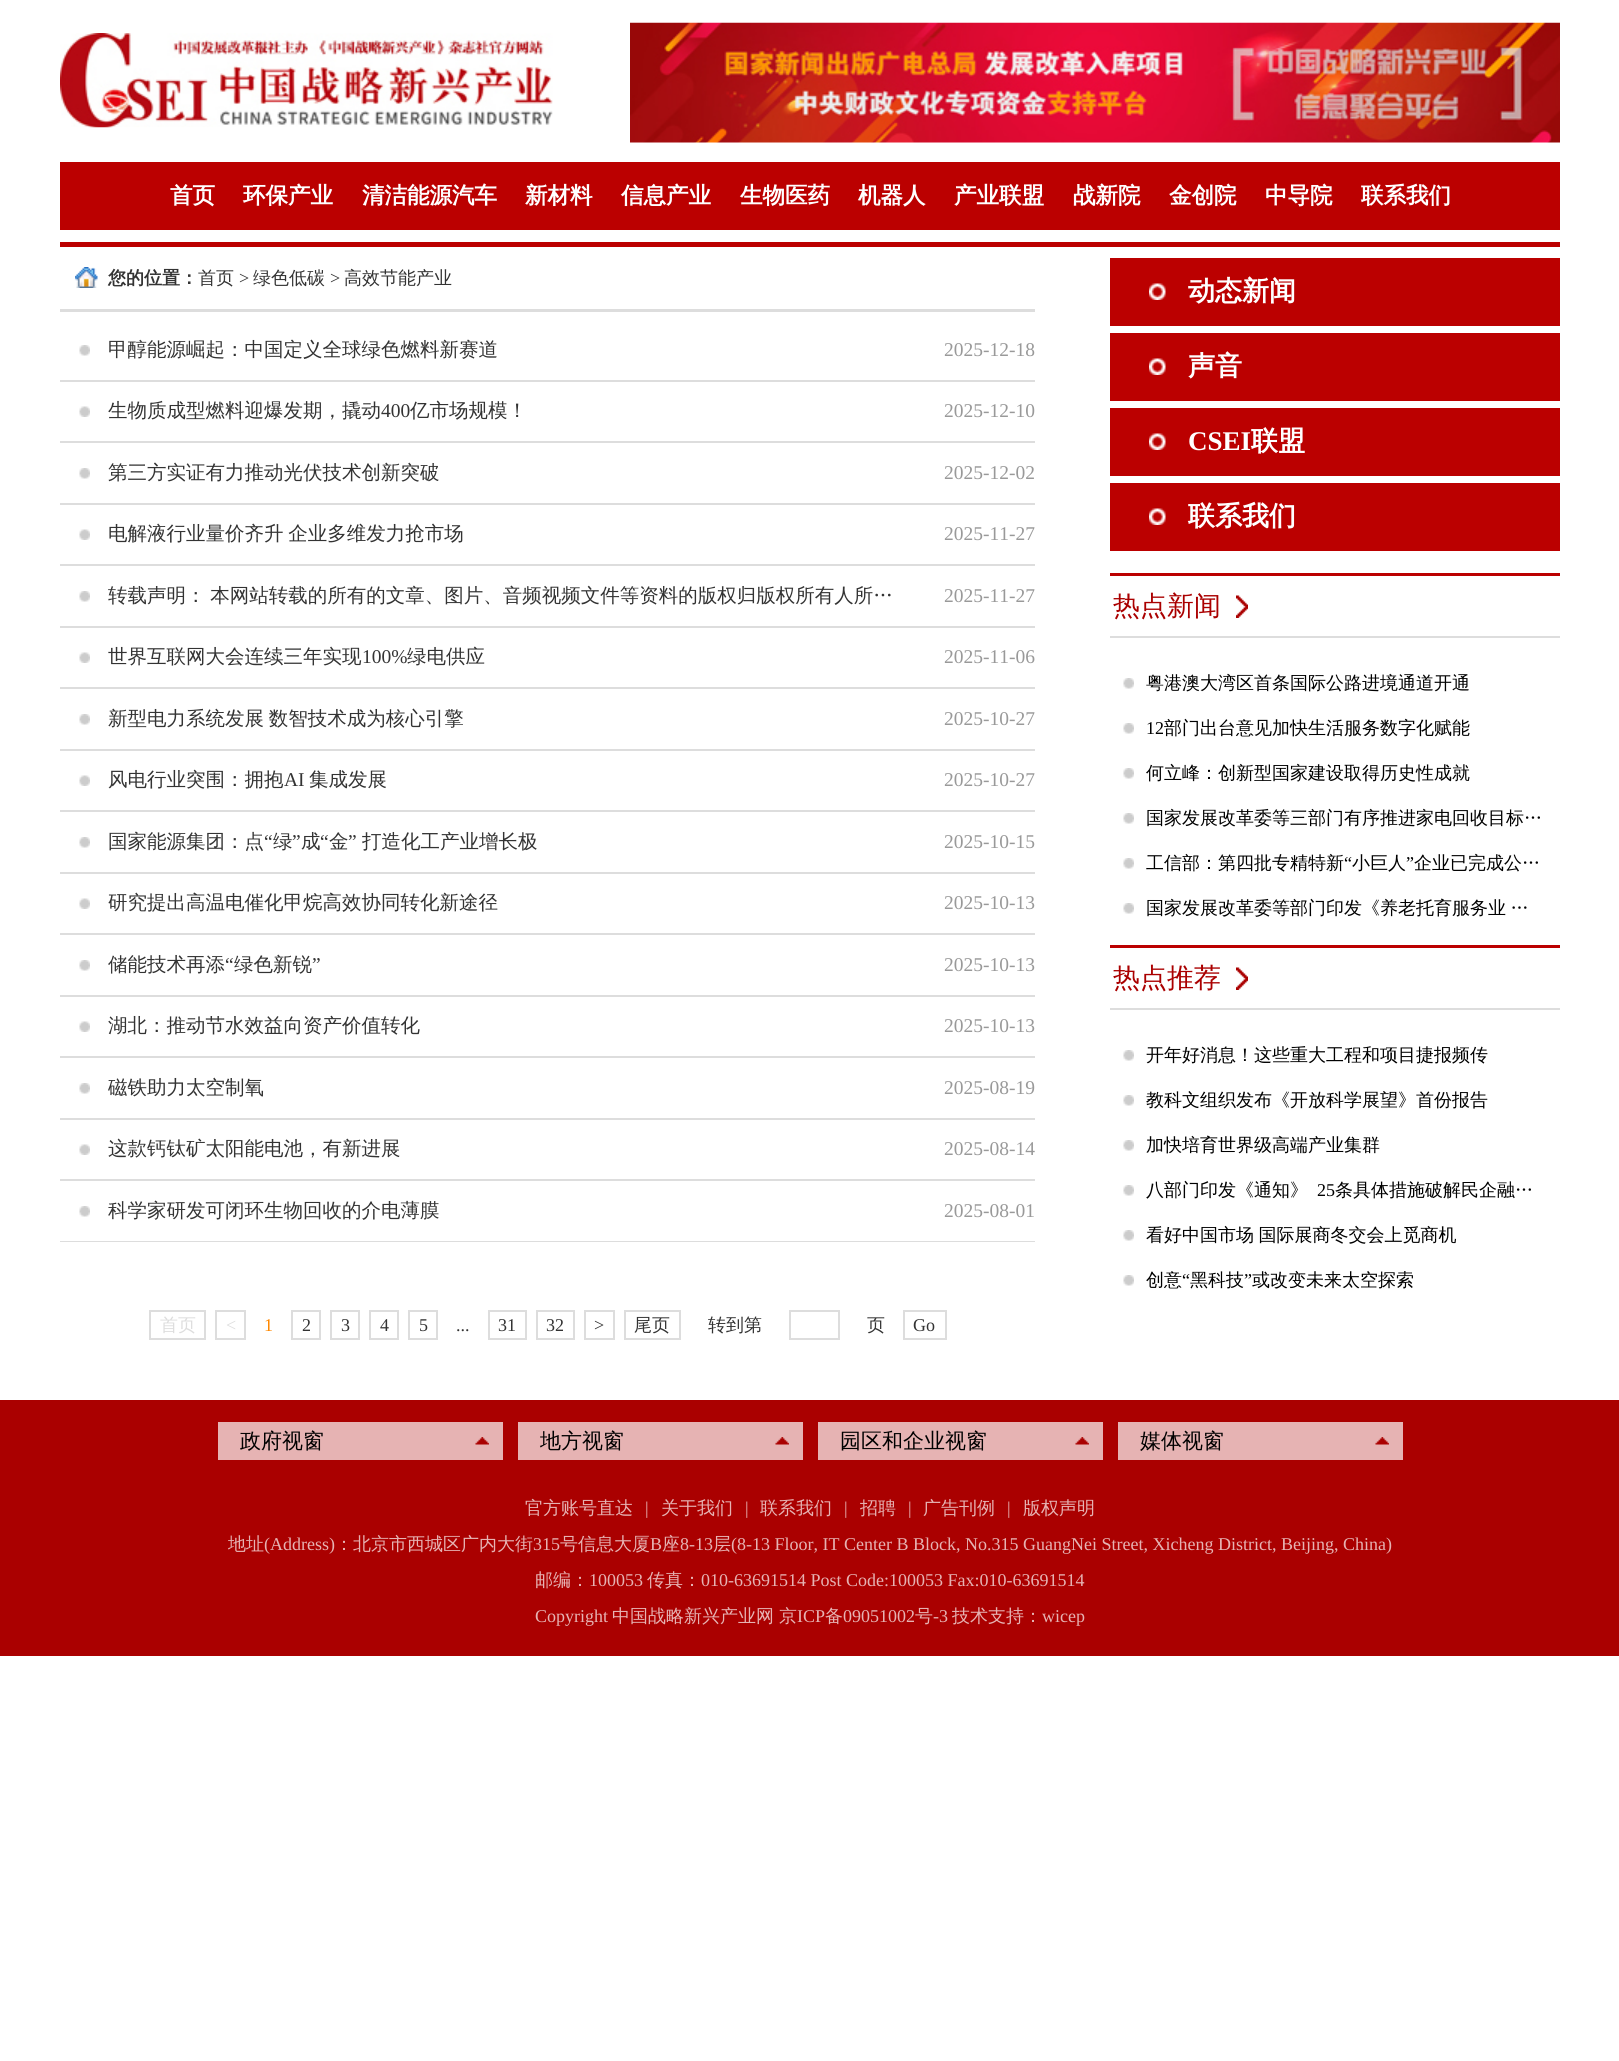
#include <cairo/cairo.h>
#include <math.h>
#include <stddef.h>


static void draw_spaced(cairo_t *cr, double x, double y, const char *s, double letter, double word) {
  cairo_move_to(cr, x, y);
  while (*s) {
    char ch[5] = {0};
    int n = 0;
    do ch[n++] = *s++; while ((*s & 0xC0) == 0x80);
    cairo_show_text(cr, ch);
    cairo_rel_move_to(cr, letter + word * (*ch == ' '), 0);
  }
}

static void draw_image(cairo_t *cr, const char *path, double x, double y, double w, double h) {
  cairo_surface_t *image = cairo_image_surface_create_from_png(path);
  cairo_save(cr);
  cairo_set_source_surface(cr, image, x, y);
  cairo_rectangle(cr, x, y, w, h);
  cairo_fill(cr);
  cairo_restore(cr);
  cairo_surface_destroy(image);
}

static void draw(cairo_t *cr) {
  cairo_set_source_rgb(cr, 1, 1, 1);
  cairo_paint(cr);
  draw_image(cr, "images/1.png", 60, 33, 493, 95);
  draw_image(cr, "images/2.png", 630, 22, 930, 121);
  cairo_set_source_rgb(cr, 187 / 255.0, 0, 0);
  cairo_rectangle(cr, 60, 162, 1500, 68);
  cairo_fill(cr);
  cairo_rectangle(cr, 60, 242, 1500, 5);
  cairo_fill(cr);
  draw_image(cr, "images/3.png", 75, 267, 23, 21);
  cairo_set_source_rgb(cr, 221 / 255.0, 221 / 255.0, 221 / 255.0);
  cairo_rectangle(cr, 60, 309, 975, 3);
  cairo_fill(cr);
  draw_image(cr, "images/4.png", 79, 345, 11, 11);
  cairo_rectangle(cr, 60, 380, 975, 2);
  cairo_fill(cr);
  draw_image(cr, "images/5.png", 79, 406, 11, 11);
  cairo_rectangle(cr, 60, 441, 975, 2);
  cairo_fill(cr);
  draw_image(cr, "images/4.png", 79, 468, 11, 11);
  cairo_rectangle(cr, 60, 503, 975, 2);
  cairo_fill(cr);
  draw_image(cr, "images/5.png", 79, 529, 11, 11);
  cairo_rectangle(cr, 60, 564, 975, 2);
  cairo_fill(cr);
  draw_image(cr, "images/4.png", 79, 591, 11, 11);
  cairo_rectangle(cr, 60, 626, 975, 2);
  cairo_fill(cr);
  draw_image(cr, "images/5.png", 79, 652, 11, 11);
  cairo_rectangle(cr, 60, 687, 975, 2);
  cairo_fill(cr);
  draw_image(cr, "images/4.png", 79, 714, 11, 11);
  cairo_rectangle(cr, 60, 749, 975, 2);
  cairo_fill(cr);
  draw_image(cr, "images/5.png", 79, 775, 11, 11);
  cairo_rectangle(cr, 60, 810, 975, 2);
  cairo_fill(cr);
  draw_image(cr, "images/4.png", 79, 837, 11, 11);
  cairo_rectangle(cr, 60, 872, 975, 2);
  cairo_fill(cr);
  draw_image(cr, "images/5.png", 79, 898, 11, 11);
  cairo_rectangle(cr, 60, 933, 975, 2);
  cairo_fill(cr);
  draw_image(cr, "images/4.png", 79, 960, 11, 11);
  cairo_rectangle(cr, 60, 995, 975, 2);
  cairo_fill(cr);
  draw_image(cr, "images/5.png", 79, 1021, 11, 11);
  cairo_rectangle(cr, 60, 1056, 975, 2);
  cairo_fill(cr);
  draw_image(cr, "images/4.png", 79, 1083, 11, 11);
  cairo_rectangle(cr, 60, 1118, 975, 2);
  cairo_fill(cr);
  draw_image(cr, "images/5.png", 79, 1144, 11, 11);
  cairo_rectangle(cr, 60, 1179, 975, 2);
  cairo_fill(cr);
  draw_image(cr, "images/4.png", 79, 1206, 11, 11);
  cairo_rectangle(cr, 60, 1241, 975, 1);
  cairo_fill(cr);
  cairo_rectangle(cr, 150, 1311, 55, 28);
  cairo_stroke(cr);
  cairo_rectangle(cr, 216, 1311, 29, 28);
  cairo_stroke(cr);
  cairo_rectangle(cr, 292, 1311, 28, 28);
  cairo_stroke(cr);
  cairo_rectangle(cr, 331, 1311, 28, 28);
  cairo_stroke(cr);
  cairo_rectangle(cr, 370, 1311, 28, 28);
  cairo_stroke(cr);
  cairo_rectangle(cr, 409, 1311, 28, 28);
  cairo_stroke(cr);
  cairo_rectangle(cr, 489, 1311, 37, 28);
  cairo_stroke(cr);
  cairo_rectangle(cr, 537, 1311, 37, 28);
  cairo_stroke(cr);
  cairo_rectangle(cr, 585, 1311, 29, 28);
  cairo_stroke(cr);
  cairo_rectangle(cr, 625, 1311, 55, 28);
  cairo_stroke(cr);
  cairo_rectangle(cr, 790, 1311, 49, 28);
  cairo_stroke(cr);
  cairo_rectangle(cr, 904, 1311, 42, 28);
  cairo_stroke(cr);
  cairo_set_source_rgb(cr, 187 / 255.0, 0, 0);
  cairo_rectangle(cr, 1110, 258, 450, 68);
  cairo_fill(cr);
  draw_image(cr, "images/6.png", 1149, 283, 17, 17);
  cairo_rectangle(cr, 1110, 333, 450, 68);
  cairo_fill(cr);
  draw_image(cr, "images/6.png", 1149, 358, 17, 17);
  cairo_rectangle(cr, 1110, 408, 450, 68);
  cairo_fill(cr);
  draw_image(cr, "images/6.png", 1149, 433, 17, 17);
  cairo_rectangle(cr, 1110, 483, 450, 68);
  cairo_fill(cr);
  draw_image(cr, "images/6.png", 1149, 508, 17, 17);
  cairo_rectangle(cr, 1110, 573, 450, 3);
  cairo_fill(cr);
  cairo_set_source_rgb(cr, 221 / 255.0, 221 / 255.0, 221 / 255.0);
  cairo_rectangle(cr, 1110, 636, 450, 2);
  cairo_fill(cr);
  draw_image(cr, "images/7.png", 1236, 595, 12, 23);
  draw_image(cr, "images/8.png", 1123, 678, 11, 11);
  draw_image(cr, "images/8.png", 1123, 723, 11, 11);
  draw_image(cr, "images/8.png", 1123, 768, 11, 11);
  draw_image(cr, "images/8.png", 1123, 813, 11, 11);
  draw_image(cr, "images/8.png", 1123, 858, 11, 11);
  draw_image(cr, "images/8.png", 1123, 903, 11, 11);
  cairo_set_source_rgb(cr, 187 / 255.0, 0, 0);
  cairo_rectangle(cr, 1110, 945, 450, 3);
  cairo_fill(cr);
  cairo_set_source_rgb(cr, 221 / 255.0, 221 / 255.0, 221 / 255.0);
  cairo_rectangle(cr, 1110, 1008, 450, 2);
  cairo_fill(cr);
  draw_image(cr, "images/7.png", 1236, 967, 12, 23);
  draw_image(cr, "images/8.png", 1123, 1050, 11, 11);
  draw_image(cr, "images/8.png", 1123, 1095, 11, 11);
  draw_image(cr, "images/8.png", 1123, 1140, 11, 11);
  draw_image(cr, "images/8.png", 1123, 1185, 11, 11);
  draw_image(cr, "images/8.png", 1123, 1230, 11, 11);
  draw_image(cr, "images/8.png", 1123, 1275, 11, 11);
  cairo_set_source_rgb(cr, 170 / 255.0, 0, 0);
  cairo_rectangle(cr, 0, 1400, 1619, 256);
  cairo_fill(cr);
  cairo_set_source_rgb(cr, 230 / 255.0, 179 / 255.0, 179 / 255.0);
  cairo_rectangle(cr, 218, 1422, 285, 38);
  cairo_fill(cr);
  draw_image(cr, "images/9.png", 475, 1437, 14, 8);
  cairo_rectangle(cr, 518, 1422, 285, 38);
  cairo_fill(cr);
  draw_image(cr, "images/9.png", 775, 1437, 14, 8);
  cairo_rectangle(cr, 818, 1422, 285, 38);
  cairo_fill(cr);
  draw_image(cr, "images/9.png", 1075, 1437, 14, 8);
  cairo_rectangle(cr, 1118, 1422, 285, 38);
  cairo_fill(cr);
  draw_image(cr, "images/10.png", 1375, 1437, 14, 8);
  cairo_select_font_face(cr, "WenQuanYi Zen Hei", CAIRO_FONT_SLANT_NORMAL, CAIRO_FONT_WEIGHT_BOLD);
  cairo_set_font_size(cr, 22.5);
  cairo_set_source_rgb(cr, 1, 1, 1);
  cairo_move_to(cr, 170, 203);
  cairo_show_text(cr, "首页");
  cairo_move_to(cr, 243, 203);
  cairo_show_text(cr, "环保产业");
  cairo_move_to(cr, 362, 203);
  cairo_show_text(cr, "清洁能源汽车");
  cairo_move_to(cr, 525, 203);
  cairo_show_text(cr, "新材料");
  cairo_move_to(cr, 621, 203);
  cairo_show_text(cr, "信息产业");
  cairo_move_to(cr, 740, 203);
  cairo_show_text(cr, "生物医药");
  cairo_move_to(cr, 858, 203);
  cairo_show_text(cr, "机器人");
  cairo_move_to(cr, 954, 203);
  cairo_show_text(cr, "产业联盟");
  cairo_move_to(cr, 1073, 203);
  cairo_show_text(cr, "战新院");
  cairo_move_to(cr, 1169, 203);
  cairo_show_text(cr, "金创院");
  cairo_move_to(cr, 1265, 203);
  cairo_show_text(cr, "中导院");
  cairo_move_to(cr, 1361, 203);
  cairo_show_text(cr, "联系我们");
  cairo_set_font_size(cr, 18);
  cairo_set_source_rgb(cr, 51 / 255.0, 51 / 255.0, 51 / 255.0);
  cairo_move_to(cr, 108, 284);
  cairo_show_text(cr, "您的位置：");
  cairo_select_font_face(cr, "WenQuanYi Zen Hei Medium", CAIRO_FONT_SLANT_NORMAL, CAIRO_FONT_WEIGHT_NORMAL);
  cairo_move_to(cr, 198, 284);
  cairo_show_text(cr, "首页");
  cairo_select_font_face(cr, "Liberation Serif", CAIRO_FONT_SLANT_NORMAL, CAIRO_FONT_WEIGHT_NORMAL);
  cairo_move_to(cr, 239, 284);
  cairo_show_text(cr, ">");
  cairo_select_font_face(cr, "WenQuanYi Zen Hei Medium", CAIRO_FONT_SLANT_NORMAL, CAIRO_FONT_WEIGHT_NORMAL);
  cairo_move_to(cr, 253, 284);
  cairo_show_text(cr, "绿色低碳");
  cairo_select_font_face(cr, "Liberation Serif", CAIRO_FONT_SLANT_NORMAL, CAIRO_FONT_WEIGHT_NORMAL);
  cairo_move_to(cr, 330, 284);
  cairo_show_text(cr, ">");
  cairo_select_font_face(cr, "WenQuanYi Zen Hei Medium", CAIRO_FONT_SLANT_NORMAL, CAIRO_FONT_WEIGHT_NORMAL);
  cairo_move_to(cr, 344, 284);
  cairo_show_text(cr, "高效节能产业");
  cairo_set_font_size(cr, 19.5);
  cairo_move_to(cr, 108, 356);
  cairo_show_text(cr, "甲醇能源崛起：中国定义全球绿色燃料新赛道");
  cairo_select_font_face(cr, "Liberation Serif", CAIRO_FONT_SLANT_NORMAL, CAIRO_FONT_WEIGHT_NORMAL);
  cairo_set_source_rgb(cr, 153 / 255.0, 153 / 255.0, 153 / 255.0);
  cairo_move_to(cr, 944, 356);
  cairo_show_text(cr, "2025-12-18");
  cairo_select_font_face(cr, "WenQuanYi Zen Hei Medium", CAIRO_FONT_SLANT_NORMAL, CAIRO_FONT_WEIGHT_NORMAL);
  cairo_set_source_rgb(cr, 51 / 255.0, 51 / 255.0, 51 / 255.0);
  cairo_move_to(cr, 108, 417);
  cairo_show_text(cr, "生物质成型燃料迎爆发期，撬动");
  cairo_select_font_face(cr, "Liberation Serif", CAIRO_FONT_SLANT_NORMAL, CAIRO_FONT_WEIGHT_NORMAL);
  cairo_move_to(cr, 381, 417);
  cairo_show_text(cr, "400");
  cairo_select_font_face(cr, "WenQuanYi Zen Hei Medium", CAIRO_FONT_SLANT_NORMAL, CAIRO_FONT_WEIGHT_NORMAL);
  cairo_move_to(cr, 410, 417);
  cairo_show_text(cr, "亿市场规模！");
  cairo_select_font_face(cr, "Liberation Serif", CAIRO_FONT_SLANT_NORMAL, CAIRO_FONT_WEIGHT_NORMAL);
  cairo_set_source_rgb(cr, 153 / 255.0, 153 / 255.0, 153 / 255.0);
  cairo_move_to(cr, 944, 417);
  cairo_show_text(cr, "2025-12-10");
  cairo_select_font_face(cr, "WenQuanYi Zen Hei Medium", CAIRO_FONT_SLANT_NORMAL, CAIRO_FONT_WEIGHT_NORMAL);
  cairo_set_source_rgb(cr, 51 / 255.0, 51 / 255.0, 51 / 255.0);
  cairo_move_to(cr, 108, 479);
  cairo_show_text(cr, "第三方实证有力推动光伏技术创新突破");
  cairo_select_font_face(cr, "Liberation Serif", CAIRO_FONT_SLANT_NORMAL, CAIRO_FONT_WEIGHT_NORMAL);
  cairo_set_source_rgb(cr, 153 / 255.0, 153 / 255.0, 153 / 255.0);
  cairo_move_to(cr, 944, 479);
  cairo_show_text(cr, "2025-12-02");
  cairo_select_font_face(cr, "WenQuanYi Zen Hei Medium", CAIRO_FONT_SLANT_NORMAL, CAIRO_FONT_WEIGHT_NORMAL);
  cairo_set_source_rgb(cr, 51 / 255.0, 51 / 255.0, 51 / 255.0);
  draw_spaced(cr, 108, 540, "电解液行业量价齐升 企业多维发力抢市场", 0, -1);
  cairo_select_font_face(cr, "Liberation Serif", CAIRO_FONT_SLANT_NORMAL, CAIRO_FONT_WEIGHT_NORMAL);
  cairo_set_source_rgb(cr, 153 / 255.0, 153 / 255.0, 153 / 255.0);
  cairo_move_to(cr, 944, 540);
  cairo_show_text(cr, "2025-11-27");
  cairo_select_font_face(cr, "WenQuanYi Zen Hei Medium", CAIRO_FONT_SLANT_NORMAL, CAIRO_FONT_WEIGHT_NORMAL);
  cairo_set_source_rgb(cr, 51 / 255.0, 51 / 255.0, 51 / 255.0);
  draw_spaced(cr, 108, 602, "转载声明： 本网站转载的所有的文章、图片、音频视频文件等资料的版权归版权所有人所…", 0, -1);
  cairo_select_font_face(cr, "Liberation Serif", CAIRO_FONT_SLANT_NORMAL, CAIRO_FONT_WEIGHT_NORMAL);
  cairo_set_source_rgb(cr, 153 / 255.0, 153 / 255.0, 153 / 255.0);
  cairo_move_to(cr, 944, 602);
  cairo_show_text(cr, "2025-11-27");
  cairo_select_font_face(cr, "WenQuanYi Zen Hei Medium", CAIRO_FONT_SLANT_NORMAL, CAIRO_FONT_WEIGHT_NORMAL);
  cairo_set_source_rgb(cr, 51 / 255.0, 51 / 255.0, 51 / 255.0);
  cairo_move_to(cr, 108, 663);
  cairo_show_text(cr, "世界互联网大会连续三年实现");
  cairo_select_font_face(cr, "Liberation Serif", CAIRO_FONT_SLANT_NORMAL, CAIRO_FONT_WEIGHT_NORMAL);
  cairo_move_to(cr, 362, 663);
  cairo_show_text(cr, "100%");
  cairo_select_font_face(cr, "WenQuanYi Zen Hei Medium", CAIRO_FONT_SLANT_NORMAL, CAIRO_FONT_WEIGHT_NORMAL);
  cairo_move_to(cr, 407, 663);
  cairo_show_text(cr, "绿电供应");
  cairo_select_font_face(cr, "Liberation Serif", CAIRO_FONT_SLANT_NORMAL, CAIRO_FONT_WEIGHT_NORMAL);
  cairo_set_source_rgb(cr, 153 / 255.0, 153 / 255.0, 153 / 255.0);
  cairo_move_to(cr, 944, 663);
  cairo_show_text(cr, "2025-11-06");
  cairo_select_font_face(cr, "WenQuanYi Zen Hei Medium", CAIRO_FONT_SLANT_NORMAL, CAIRO_FONT_WEIGHT_NORMAL);
  cairo_set_source_rgb(cr, 51 / 255.0, 51 / 255.0, 51 / 255.0);
  draw_spaced(cr, 108, 725, "新型电力系统发展 数智技术成为核心引擎", 0, -1);
  cairo_select_font_face(cr, "Liberation Serif", CAIRO_FONT_SLANT_NORMAL, CAIRO_FONT_WEIGHT_NORMAL);
  cairo_set_source_rgb(cr, 153 / 255.0, 153 / 255.0, 153 / 255.0);
  cairo_move_to(cr, 944, 725);
  cairo_show_text(cr, "2025-10-27");
  cairo_select_font_face(cr, "WenQuanYi Zen Hei Medium", CAIRO_FONT_SLANT_NORMAL, CAIRO_FONT_WEIGHT_NORMAL);
  cairo_set_source_rgb(cr, 51 / 255.0, 51 / 255.0, 51 / 255.0);
  cairo_move_to(cr, 108, 786);
  cairo_show_text(cr, "风电行业突围：拥抱");
  cairo_select_font_face(cr, "Liberation Serif", CAIRO_FONT_SLANT_NORMAL, CAIRO_FONT_WEIGHT_NORMAL);
  cairo_move_to(cr, 284, 786);
  cairo_show_text(cr, "AI");
  cairo_select_font_face(cr, "WenQuanYi Zen Hei Medium", CAIRO_FONT_SLANT_NORMAL, CAIRO_FONT_WEIGHT_NORMAL);
  cairo_move_to(cr, 309, 786);
  cairo_show_text(cr, "集成发展");
  cairo_select_font_face(cr, "Liberation Serif", CAIRO_FONT_SLANT_NORMAL, CAIRO_FONT_WEIGHT_NORMAL);
  cairo_set_source_rgb(cr, 153 / 255.0, 153 / 255.0, 153 / 255.0);
  cairo_move_to(cr, 944, 786);
  cairo_show_text(cr, "2025-10-27");
  cairo_select_font_face(cr, "WenQuanYi Zen Hei Medium", CAIRO_FONT_SLANT_NORMAL, CAIRO_FONT_WEIGHT_NORMAL);
  cairo_set_source_rgb(cr, 51 / 255.0, 51 / 255.0, 51 / 255.0);
  cairo_move_to(cr, 108, 848);
  cairo_show_text(cr, "国家能源集团：点");
  cairo_select_font_face(cr, "Liberation Serif", CAIRO_FONT_SLANT_NORMAL, CAIRO_FONT_WEIGHT_NORMAL);
  cairo_move_to(cr, 264, 848);
  cairo_show_text(cr, "“");
  cairo_select_font_face(cr, "WenQuanYi Zen Hei Medium", CAIRO_FONT_SLANT_NORMAL, CAIRO_FONT_WEIGHT_NORMAL);
  cairo_move_to(cr, 273, 848);
  cairo_show_text(cr, "绿");
  cairo_select_font_face(cr, "Liberation Serif", CAIRO_FONT_SLANT_NORMAL, CAIRO_FONT_WEIGHT_NORMAL);
  cairo_move_to(cr, 292, 848);
  cairo_show_text(cr, "”");
  cairo_select_font_face(cr, "WenQuanYi Zen Hei Medium", CAIRO_FONT_SLANT_NORMAL, CAIRO_FONT_WEIGHT_NORMAL);
  cairo_move_to(cr, 301, 848);
  cairo_show_text(cr, "成");
  cairo_select_font_face(cr, "Liberation Serif", CAIRO_FONT_SLANT_NORMAL, CAIRO_FONT_WEIGHT_NORMAL);
  cairo_move_to(cr, 320, 848);
  cairo_show_text(cr, "“");
  cairo_select_font_face(cr, "WenQuanYi Zen Hei Medium", CAIRO_FONT_SLANT_NORMAL, CAIRO_FONT_WEIGHT_NORMAL);
  cairo_move_to(cr, 329, 848);
  cairo_show_text(cr, "金");
  cairo_select_font_face(cr, "Liberation Serif", CAIRO_FONT_SLANT_NORMAL, CAIRO_FONT_WEIGHT_NORMAL);
  cairo_move_to(cr, 348, 848);
  cairo_show_text(cr, "”");
  cairo_select_font_face(cr, "WenQuanYi Zen Hei Medium", CAIRO_FONT_SLANT_NORMAL, CAIRO_FONT_WEIGHT_NORMAL);
  cairo_move_to(cr, 362, 848);
  cairo_show_text(cr, "打造化工产业增长极");
  cairo_select_font_face(cr, "Liberation Serif", CAIRO_FONT_SLANT_NORMAL, CAIRO_FONT_WEIGHT_NORMAL);
  cairo_set_source_rgb(cr, 153 / 255.0, 153 / 255.0, 153 / 255.0);
  cairo_move_to(cr, 944, 848);
  cairo_show_text(cr, "2025-10-15");
  cairo_select_font_face(cr, "WenQuanYi Zen Hei Medium", CAIRO_FONT_SLANT_NORMAL, CAIRO_FONT_WEIGHT_NORMAL);
  cairo_set_source_rgb(cr, 51 / 255.0, 51 / 255.0, 51 / 255.0);
  cairo_move_to(cr, 108, 909);
  cairo_show_text(cr, "研究提出高温电催化甲烷高效协同转化新途径");
  cairo_select_font_face(cr, "Liberation Serif", CAIRO_FONT_SLANT_NORMAL, CAIRO_FONT_WEIGHT_NORMAL);
  cairo_set_source_rgb(cr, 153 / 255.0, 153 / 255.0, 153 / 255.0);
  cairo_move_to(cr, 944, 909);
  cairo_show_text(cr, "2025-10-13");
  cairo_select_font_face(cr, "WenQuanYi Zen Hei Medium", CAIRO_FONT_SLANT_NORMAL, CAIRO_FONT_WEIGHT_NORMAL);
  cairo_set_source_rgb(cr, 51 / 255.0, 51 / 255.0, 51 / 255.0);
  cairo_move_to(cr, 108, 971);
  cairo_show_text(cr, "储能技术再添");
  cairo_select_font_face(cr, "Liberation Serif", CAIRO_FONT_SLANT_NORMAL, CAIRO_FONT_WEIGHT_NORMAL);
  cairo_move_to(cr, 225, 971);
  cairo_show_text(cr, "“");
  cairo_select_font_face(cr, "WenQuanYi Zen Hei Medium", CAIRO_FONT_SLANT_NORMAL, CAIRO_FONT_WEIGHT_NORMAL);
  cairo_move_to(cr, 234, 971);
  cairo_show_text(cr, "绿色新锐");
  cairo_select_font_face(cr, "Liberation Serif", CAIRO_FONT_SLANT_NORMAL, CAIRO_FONT_WEIGHT_NORMAL);
  cairo_move_to(cr, 312, 971);
  cairo_show_text(cr, "”");
  cairo_set_source_rgb(cr, 153 / 255.0, 153 / 255.0, 153 / 255.0);
  cairo_move_to(cr, 944, 971);
  cairo_show_text(cr, "2025-10-13");
  cairo_select_font_face(cr, "WenQuanYi Zen Hei Medium", CAIRO_FONT_SLANT_NORMAL, CAIRO_FONT_WEIGHT_NORMAL);
  cairo_set_source_rgb(cr, 51 / 255.0, 51 / 255.0, 51 / 255.0);
  cairo_move_to(cr, 108, 1032);
  cairo_show_text(cr, "湖北：推动节水效益向资产价值转化");
  cairo_select_font_face(cr, "Liberation Serif", CAIRO_FONT_SLANT_NORMAL, CAIRO_FONT_WEIGHT_NORMAL);
  cairo_set_source_rgb(cr, 153 / 255.0, 153 / 255.0, 153 / 255.0);
  cairo_move_to(cr, 944, 1032);
  cairo_show_text(cr, "2025-10-13");
  cairo_select_font_face(cr, "WenQuanYi Zen Hei Medium", CAIRO_FONT_SLANT_NORMAL, CAIRO_FONT_WEIGHT_NORMAL);
  cairo_set_source_rgb(cr, 51 / 255.0, 51 / 255.0, 51 / 255.0);
  cairo_move_to(cr, 108, 1094);
  cairo_show_text(cr, "磁铁助力太空制氧");
  cairo_select_font_face(cr, "Liberation Serif", CAIRO_FONT_SLANT_NORMAL, CAIRO_FONT_WEIGHT_NORMAL);
  cairo_set_source_rgb(cr, 153 / 255.0, 153 / 255.0, 153 / 255.0);
  cairo_move_to(cr, 944, 1094);
  cairo_show_text(cr, "2025-08-19");
  cairo_select_font_face(cr, "WenQuanYi Zen Hei Medium", CAIRO_FONT_SLANT_NORMAL, CAIRO_FONT_WEIGHT_NORMAL);
  cairo_set_source_rgb(cr, 51 / 255.0, 51 / 255.0, 51 / 255.0);
  cairo_move_to(cr, 108, 1155);
  cairo_show_text(cr, "这款钙钛矿太阳能电池，有新进展");
  cairo_select_font_face(cr, "Liberation Serif", CAIRO_FONT_SLANT_NORMAL, CAIRO_FONT_WEIGHT_NORMAL);
  cairo_set_source_rgb(cr, 153 / 255.0, 153 / 255.0, 153 / 255.0);
  cairo_move_to(cr, 944, 1155);
  cairo_show_text(cr, "2025-08-14");
  cairo_select_font_face(cr, "WenQuanYi Zen Hei Medium", CAIRO_FONT_SLANT_NORMAL, CAIRO_FONT_WEIGHT_NORMAL);
  cairo_set_source_rgb(cr, 51 / 255.0, 51 / 255.0, 51 / 255.0);
  cairo_move_to(cr, 108, 1217);
  cairo_show_text(cr, "科学家研发可闭环生物回收的介电薄膜");
  cairo_select_font_face(cr, "Liberation Serif", CAIRO_FONT_SLANT_NORMAL, CAIRO_FONT_WEIGHT_NORMAL);
  cairo_set_source_rgb(cr, 153 / 255.0, 153 / 255.0, 153 / 255.0);
  cairo_move_to(cr, 944, 1217);
  cairo_show_text(cr, "2025-08-01");
  cairo_select_font_face(cr, "WenQuanYi Zen Hei Medium", CAIRO_FONT_SLANT_NORMAL, CAIRO_FONT_WEIGHT_NORMAL);
  cairo_set_font_size(cr, 18);
  cairo_set_source_rgb(cr, 221 / 255.0, 221 / 255.0, 221 / 255.0);
  cairo_move_to(cr, 160, 1331);
  cairo_show_text(cr, "首页");
  cairo_select_font_face(cr, "Liberation Serif", CAIRO_FONT_SLANT_NORMAL, CAIRO_FONT_WEIGHT_NORMAL);
  cairo_move_to(cr, 226, 1331);
  cairo_show_text(cr, "<");
  cairo_set_source_rgb(cr, 1, 136 / 255.0, 0);
  cairo_move_to(cr, 264, 1331);
  cairo_show_text(cr, "1");
  cairo_set_source_rgb(cr, 51 / 255.0, 51 / 255.0, 51 / 255.0);
  cairo_move_to(cr, 302, 1331);
  cairo_show_text(cr, "2");
  cairo_move_to(cr, 341, 1331);
  cairo_show_text(cr, "3");
  cairo_move_to(cr, 380, 1331);
  cairo_show_text(cr, "4");
  cairo_move_to(cr, 419, 1331);
  cairo_show_text(cr, "5");
  cairo_move_to(cr, 498, 1331);
  cairo_show_text(cr, "31");
  cairo_move_to(cr, 546, 1331);
  cairo_show_text(cr, "32");
  cairo_move_to(cr, 594, 1331);
  cairo_show_text(cr, ">");
  cairo_select_font_face(cr, "WenQuanYi Zen Hei Medium", CAIRO_FONT_SLANT_NORMAL, CAIRO_FONT_WEIGHT_NORMAL);
  cairo_move_to(cr, 634, 1331);
  cairo_show_text(cr, "尾页");
  cairo_move_to(cr, 708, 1331);
  cairo_show_text(cr, "转到第");
  cairo_move_to(cr, 867, 1331);
  cairo_show_text(cr, "页");
  cairo_select_font_face(cr, "Liberation Serif", CAIRO_FONT_SLANT_NORMAL, CAIRO_FONT_WEIGHT_NORMAL);
  cairo_move_to(cr, 913, 1331);
  cairo_show_text(cr, "Go");
  cairo_move_to(cr, 456, 1331);
  cairo_show_text(cr, "...");
  cairo_select_font_face(cr, "WenQuanYi Zen Hei", CAIRO_FONT_SLANT_NORMAL, CAIRO_FONT_WEIGHT_BOLD);
  cairo_set_font_size(cr, 27);
  cairo_set_source_rgb(cr, 1, 1, 1);
  cairo_move_to(cr, 1188, 300);
  cairo_show_text(cr, "动态新闻");
  cairo_move_to(cr, 1188, 375);
  cairo_show_text(cr, "声音");
  cairo_select_font_face(cr, "Liberation Serif", CAIRO_FONT_SLANT_NORMAL, CAIRO_FONT_WEIGHT_BOLD);
  cairo_move_to(cr, 1188, 450);
  cairo_show_text(cr, "CSEI");
  cairo_select_font_face(cr, "WenQuanYi Zen Hei", CAIRO_FONT_SLANT_NORMAL, CAIRO_FONT_WEIGHT_BOLD);
  cairo_move_to(cr, 1251, 450);
  cairo_show_text(cr, "联盟");
  cairo_move_to(cr, 1188, 525);
  cairo_show_text(cr, "联系我们");
  cairo_select_font_face(cr, "WenQuanYi Zen Hei Medium", CAIRO_FONT_SLANT_NORMAL, CAIRO_FONT_WEIGHT_NORMAL);
  cairo_set_source_rgb(cr, 170 / 255.0, 0, 0);
  cairo_move_to(cr, 1113, 615);
  cairo_show_text(cr, "热点新闻");
  cairo_set_font_size(cr, 18);
  cairo_set_source_rgb(cr, 0, 0, 0);
  cairo_move_to(cr, 1146, 689);
  cairo_show_text(cr, "粤港澳大湾区首条国际公路进境通道开通");
  cairo_select_font_face(cr, "Liberation Serif", CAIRO_FONT_SLANT_NORMAL, CAIRO_FONT_WEIGHT_NORMAL);
  cairo_move_to(cr, 1146, 734);
  cairo_show_text(cr, "12");
  cairo_select_font_face(cr, "WenQuanYi Zen Hei Medium", CAIRO_FONT_SLANT_NORMAL, CAIRO_FONT_WEIGHT_NORMAL);
  cairo_move_to(cr, 1164, 734);
  cairo_show_text(cr, "部门出台意见加快生活服务数字化赋能");
  cairo_move_to(cr, 1146, 779);
  cairo_show_text(cr, "何立峰：创新型国家建设取得历史性成就");
  cairo_move_to(cr, 1146, 824);
  cairo_show_text(cr, "国家发展改革委等三部门有序推进家电回收目标…");
  cairo_move_to(cr, 1146, 869);
  cairo_show_text(cr, "工信部：第四批专精特新");
  cairo_select_font_face(cr, "Liberation Serif", CAIRO_FONT_SLANT_NORMAL, CAIRO_FONT_WEIGHT_NORMAL);
  cairo_move_to(cr, 1344, 869);
  cairo_show_text(cr, "“");
  cairo_select_font_face(cr, "WenQuanYi Zen Hei Medium", CAIRO_FONT_SLANT_NORMAL, CAIRO_FONT_WEIGHT_NORMAL);
  cairo_move_to(cr, 1352, 869);
  cairo_show_text(cr, "小巨人");
  cairo_select_font_face(cr, "Liberation Serif", CAIRO_FONT_SLANT_NORMAL, CAIRO_FONT_WEIGHT_NORMAL);
  cairo_move_to(cr, 1406, 869);
  cairo_show_text(cr, "”");
  cairo_select_font_face(cr, "WenQuanYi Zen Hei Medium", CAIRO_FONT_SLANT_NORMAL, CAIRO_FONT_WEIGHT_NORMAL);
  cairo_move_to(cr, 1414, 869);
  cairo_show_text(cr, "企业已完成公…");
  draw_spaced(cr, 1146, 914, "国家发展改革委等部门印发《养老托育服务业 …", 0, -1);
  cairo_set_font_size(cr, 27);
  cairo_set_source_rgb(cr, 170 / 255.0, 0, 0);
  cairo_move_to(cr, 1113, 987);
  cairo_show_text(cr, "热点推荐");
  cairo_set_font_size(cr, 18);
  cairo_set_source_rgb(cr, 0, 0, 0);
  cairo_move_to(cr, 1146, 1061);
  cairo_show_text(cr, "开年好消息！这些重大工程和项目捷报频传");
  cairo_move_to(cr, 1146, 1106);
  cairo_show_text(cr, "教科文组织发布《开放科学展望》首份报告");
  cairo_move_to(cr, 1146, 1151);
  cairo_show_text(cr, "加快培育世界级高端产业集群");
  cairo_move_to(cr, 1146, 1196);
  cairo_show_text(cr, "八部门印发《通知》");
  cairo_select_font_face(cr, "Liberation Serif", CAIRO_FONT_SLANT_NORMAL, CAIRO_FONT_WEIGHT_NORMAL);
  cairo_move_to(cr, 1317, 1196);
  cairo_show_text(cr, "25");
  cairo_select_font_face(cr, "WenQuanYi Zen Hei Medium", CAIRO_FONT_SLANT_NORMAL, CAIRO_FONT_WEIGHT_NORMAL);
  cairo_move_to(cr, 1335, 1196);
  cairo_show_text(cr, "条具体措施破解民企融…");
  draw_spaced(cr, 1146, 1241, "看好中国市场 国际展商冬交会上觅商机", 0, -1);
  cairo_move_to(cr, 1146, 1286);
  cairo_show_text(cr, "创意");
  cairo_select_font_face(cr, "Liberation Serif", CAIRO_FONT_SLANT_NORMAL, CAIRO_FONT_WEIGHT_NORMAL);
  cairo_move_to(cr, 1182, 1286);
  cairo_show_text(cr, "“");
  cairo_select_font_face(cr, "WenQuanYi Zen Hei Medium", CAIRO_FONT_SLANT_NORMAL, CAIRO_FONT_WEIGHT_NORMAL);
  cairo_move_to(cr, 1190, 1286);
  cairo_show_text(cr, "黑科技");
  cairo_select_font_face(cr, "Liberation Serif", CAIRO_FONT_SLANT_NORMAL, CAIRO_FONT_WEIGHT_NORMAL);
  cairo_move_to(cr, 1244, 1286);
  cairo_show_text(cr, "”");
  cairo_select_font_face(cr, "WenQuanYi Zen Hei Medium", CAIRO_FONT_SLANT_NORMAL, CAIRO_FONT_WEIGHT_NORMAL);
  cairo_move_to(cr, 1252, 1286);
  cairo_show_text(cr, "或改变未来太空探索");
  cairo_set_font_size(cr, 21);
  cairo_move_to(cr, 240, 1448);
  cairo_show_text(cr, "政府视窗");
  cairo_move_to(cr, 540, 1448);
  cairo_show_text(cr, "地方视窗");
  cairo_move_to(cr, 840, 1448);
  cairo_show_text(cr, "园区和企业视窗");
  cairo_move_to(cr, 1140, 1448);
  cairo_show_text(cr, "媒体视窗");
  cairo_set_font_size(cr, 18);
  cairo_set_source_rgb(cr, 230 / 255.0, 179 / 255.0, 179 / 255.0);
  cairo_move_to(cr, 525, 1514);
  cairo_show_text(cr, "官方账号直达");
  cairo_select_font_face(cr, "Liberation Serif", CAIRO_FONT_SLANT_NORMAL, CAIRO_FONT_WEIGHT_NORMAL);
  cairo_move_to(cr, 645, 1514);
  cairo_show_text(cr, "|");
  cairo_select_font_face(cr, "WenQuanYi Zen Hei Medium", CAIRO_FONT_SLANT_NORMAL, CAIRO_FONT_WEIGHT_NORMAL);
  cairo_move_to(cr, 661, 1514);
  cairo_show_text(cr, "关于我们");
  cairo_select_font_face(cr, "Liberation Serif", CAIRO_FONT_SLANT_NORMAL, CAIRO_FONT_WEIGHT_NORMAL);
  cairo_move_to(cr, 745, 1514);
  cairo_show_text(cr, "|");
  cairo_select_font_face(cr, "WenQuanYi Zen Hei Medium", CAIRO_FONT_SLANT_NORMAL, CAIRO_FONT_WEIGHT_NORMAL);
  cairo_move_to(cr, 760, 1514);
  cairo_show_text(cr, "联系我们");
  cairo_select_font_face(cr, "Liberation Serif", CAIRO_FONT_SLANT_NORMAL, CAIRO_FONT_WEIGHT_NORMAL);
  cairo_move_to(cr, 844, 1514);
  cairo_show_text(cr, "|");
  cairo_select_font_face(cr, "WenQuanYi Zen Hei Medium", CAIRO_FONT_SLANT_NORMAL, CAIRO_FONT_WEIGHT_NORMAL);
  cairo_move_to(cr, 860, 1514);
  cairo_show_text(cr, "招聘");
  cairo_select_font_face(cr, "Liberation Serif", CAIRO_FONT_SLANT_NORMAL, CAIRO_FONT_WEIGHT_NORMAL);
  cairo_move_to(cr, 908, 1514);
  cairo_show_text(cr, "|");
  cairo_select_font_face(cr, "WenQuanYi Zen Hei Medium", CAIRO_FONT_SLANT_NORMAL, CAIRO_FONT_WEIGHT_NORMAL);
  cairo_move_to(cr, 923, 1514);
  cairo_show_text(cr, "广告刊例");
  cairo_select_font_face(cr, "Liberation Serif", CAIRO_FONT_SLANT_NORMAL, CAIRO_FONT_WEIGHT_NORMAL);
  cairo_move_to(cr, 1007, 1514);
  cairo_show_text(cr, "|");
  cairo_select_font_face(cr, "WenQuanYi Zen Hei Medium", CAIRO_FONT_SLANT_NORMAL, CAIRO_FONT_WEIGHT_NORMAL);
  cairo_move_to(cr, 1023, 1514);
  cairo_show_text(cr, "版权声明");
  cairo_move_to(cr, 228, 1550);
  cairo_show_text(cr, "地址");
  cairo_select_font_face(cr, "Liberation Serif", CAIRO_FONT_SLANT_NORMAL, CAIRO_FONT_WEIGHT_NORMAL);
  cairo_move_to(cr, 264, 1550);
  cairo_show_text(cr, "(Address)");
  cairo_select_font_face(cr, "WenQuanYi Zen Hei Medium", CAIRO_FONT_SLANT_NORMAL, CAIRO_FONT_WEIGHT_NORMAL);
  cairo_move_to(cr, 335, 1550);
  cairo_show_text(cr, "：北京市西城区广内大街");
  cairo_select_font_face(cr, "Liberation Serif", CAIRO_FONT_SLANT_NORMAL, CAIRO_FONT_WEIGHT_NORMAL);
  cairo_move_to(cr, 533, 1550);
  cairo_show_text(cr, "315");
  cairo_select_font_face(cr, "WenQuanYi Zen Hei Medium", CAIRO_FONT_SLANT_NORMAL, CAIRO_FONT_WEIGHT_NORMAL);
  cairo_move_to(cr, 560, 1550);
  cairo_show_text(cr, "号信息大厦");
  cairo_select_font_face(cr, "Liberation Serif", CAIRO_FONT_SLANT_NORMAL, CAIRO_FONT_WEIGHT_NORMAL);
  cairo_move_to(cr, 650, 1550);
  cairo_show_text(cr, "B");
  cairo_select_font_face(cr, "WenQuanYi Zen Hei Medium", CAIRO_FONT_SLANT_NORMAL, CAIRO_FONT_WEIGHT_NORMAL);
  cairo_move_to(cr, 662, 1550);
  cairo_show_text(cr, "座");
  cairo_select_font_face(cr, "Liberation Serif", CAIRO_FONT_SLANT_NORMAL, CAIRO_FONT_WEIGHT_NORMAL);
  cairo_move_to(cr, 680, 1550);
  cairo_show_text(cr, "8-13");
  cairo_select_font_face(cr, "WenQuanYi Zen Hei Medium", CAIRO_FONT_SLANT_NORMAL, CAIRO_FONT_WEIGHT_NORMAL);
  cairo_move_to(cr, 713, 1550);
  cairo_show_text(cr, "层");
  cairo_select_font_face(cr, "Liberation Serif", CAIRO_FONT_SLANT_NORMAL, CAIRO_FONT_WEIGHT_NORMAL);
  cairo_move_to(cr, 731, 1550);
  cairo_show_text(cr, "(8-13 Floor, IT Center B Block, No.315 GuangNei Street, Xicheng District, Beijing, China)");
  cairo_select_font_face(cr, "WenQuanYi Zen Hei Medium", CAIRO_FONT_SLANT_NORMAL, CAIRO_FONT_WEIGHT_NORMAL);
  cairo_move_to(cr, 535, 1586);
  cairo_show_text(cr, "邮编：");
  cairo_select_font_face(cr, "Liberation Serif", CAIRO_FONT_SLANT_NORMAL, CAIRO_FONT_WEIGHT_NORMAL);
  cairo_move_to(cr, 589, 1586);
  cairo_show_text(cr, "100053");
  cairo_select_font_face(cr, "WenQuanYi Zen Hei Medium", CAIRO_FONT_SLANT_NORMAL, CAIRO_FONT_WEIGHT_NORMAL);
  cairo_move_to(cr, 647, 1586);
  cairo_show_text(cr, "传真：");
  cairo_select_font_face(cr, "Liberation Serif", CAIRO_FONT_SLANT_NORMAL, CAIRO_FONT_WEIGHT_NORMAL);
  cairo_move_to(cr, 701, 1586);
  cairo_show_text(cr, "010-63691514 Post Code:100053 Fax:010-63691514");
  cairo_move_to(cr, 535, 1622);
  cairo_show_text(cr, "Copyright");
  cairo_select_font_face(cr, "WenQuanYi Zen Hei Medium", CAIRO_FONT_SLANT_NORMAL, CAIRO_FONT_WEIGHT_NORMAL);
  cairo_move_to(cr, 612, 1622);
  cairo_show_text(cr, "中国战略新兴产业网");
  cairo_move_to(cr, 779, 1622);
  cairo_show_text(cr, "京");
  cairo_select_font_face(cr, "Liberation Serif", CAIRO_FONT_SLANT_NORMAL, CAIRO_FONT_WEIGHT_NORMAL);
  cairo_move_to(cr, 797, 1622);
  cairo_show_text(cr, "ICP");
  cairo_select_font_face(cr, "WenQuanYi Zen Hei Medium", CAIRO_FONT_SLANT_NORMAL, CAIRO_FONT_WEIGHT_NORMAL);
  cairo_move_to(cr, 825, 1622);
  cairo_show_text(cr, "备");
  cairo_select_font_face(cr, "Liberation Serif", CAIRO_FONT_SLANT_NORMAL, CAIRO_FONT_WEIGHT_NORMAL);
  cairo_move_to(cr, 843, 1622);
  cairo_show_text(cr, "09051002");
  cairo_select_font_face(cr, "WenQuanYi Zen Hei Medium", CAIRO_FONT_SLANT_NORMAL, CAIRO_FONT_WEIGHT_NORMAL);
  cairo_move_to(cr, 915, 1622);
  cairo_show_text(cr, "号");
  cairo_select_font_face(cr, "Liberation Serif", CAIRO_FONT_SLANT_NORMAL, CAIRO_FONT_WEIGHT_NORMAL);
  cairo_move_to(cr, 933, 1622);
  cairo_show_text(cr, "-3");
  cairo_select_font_face(cr, "WenQuanYi Zen Hei Medium", CAIRO_FONT_SLANT_NORMAL, CAIRO_FONT_WEIGHT_NORMAL);
  cairo_move_to(cr, 952, 1622);
  cairo_show_text(cr, "技术支持：");
  cairo_select_font_face(cr, "Liberation Serif", CAIRO_FONT_SLANT_NORMAL, CAIRO_FONT_WEIGHT_NORMAL);
  cairo_move_to(cr, 1042, 1622);
  cairo_show_text(cr, "wicep");
}

int main(void) {
  cairo_surface_t *surface = cairo_image_surface_create(CAIRO_FORMAT_RGB24, 1619, 2061);
  cairo_t *cr = cairo_create(surface);
  cairo_font_options_t *options = cairo_font_options_create();
  cairo_font_options_set_hint_metrics(options, CAIRO_HINT_METRICS_OFF);
  cairo_font_options_set_hint_style(options, CAIRO_HINT_STYLE_NONE);
  cairo_set_font_options(cr, options);
  cairo_set_miter_limit(cr, 4);
  draw(cr);
  cairo_surface_write_to_png(surface, "out.png");
  cairo_font_options_destroy(options);
  cairo_destroy(cr);
  cairo_surface_destroy(surface);
  return 0;
}
